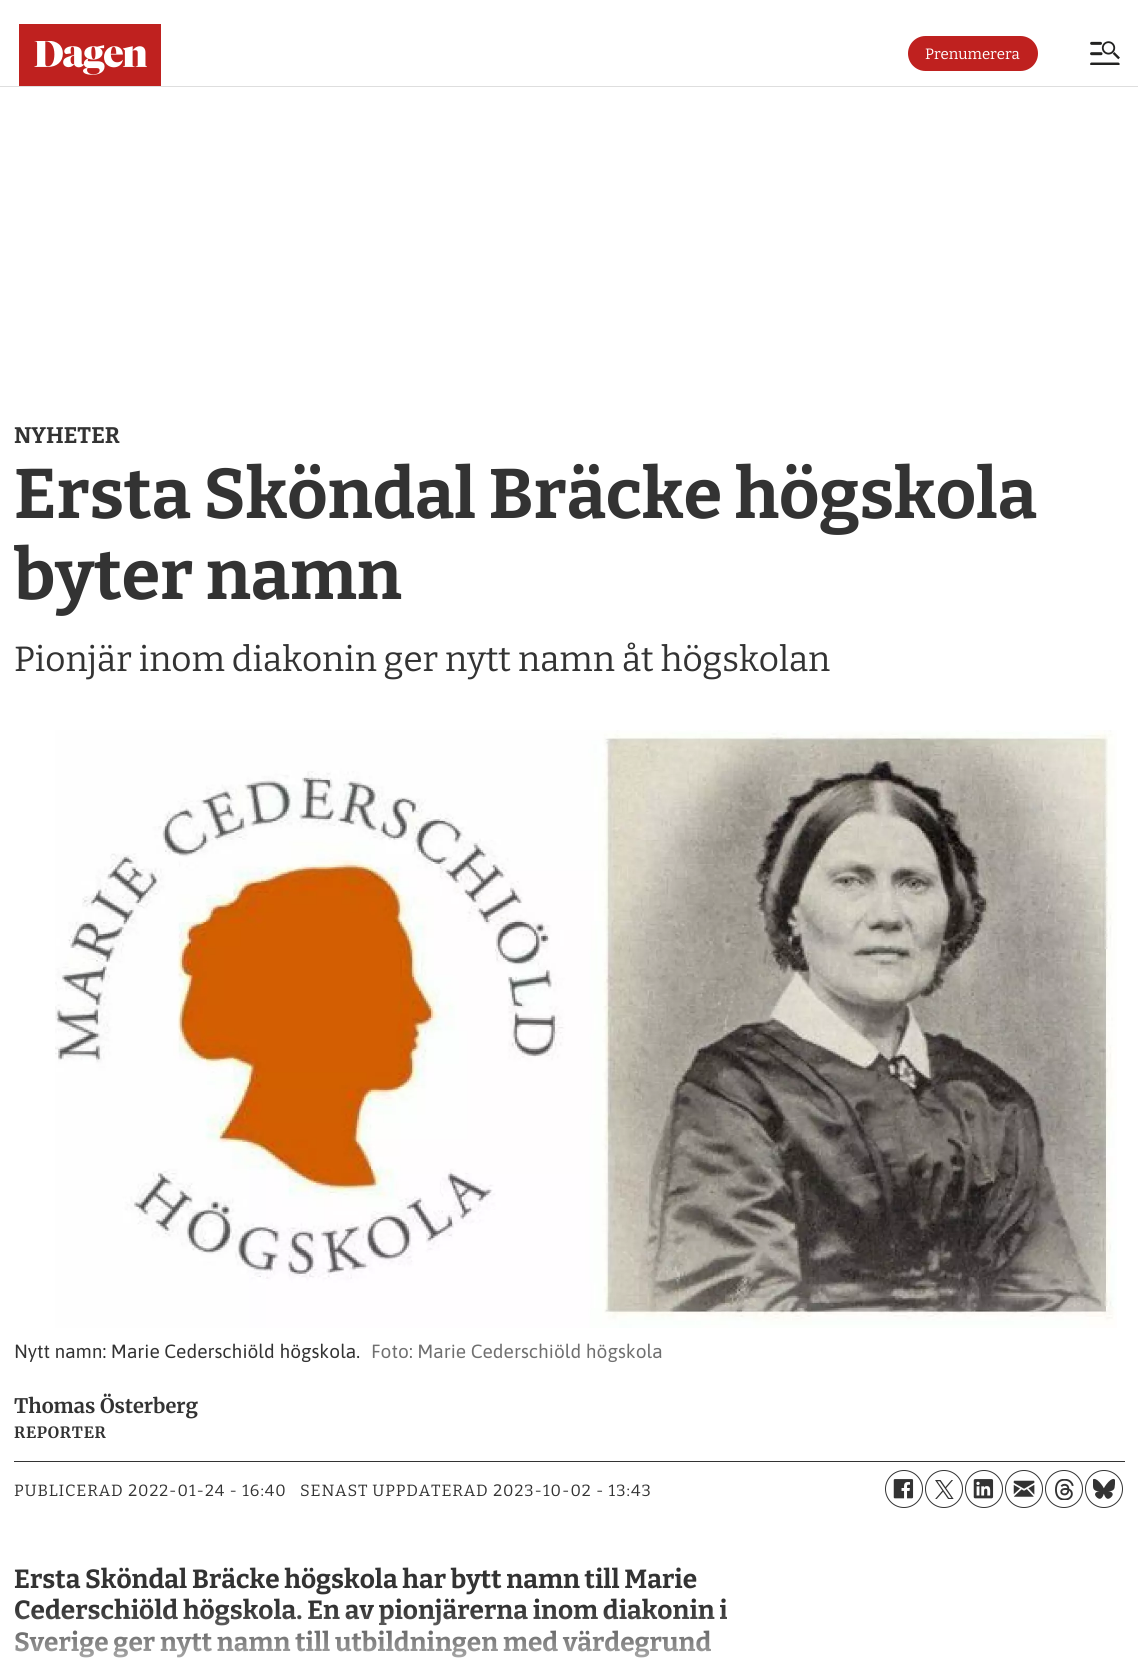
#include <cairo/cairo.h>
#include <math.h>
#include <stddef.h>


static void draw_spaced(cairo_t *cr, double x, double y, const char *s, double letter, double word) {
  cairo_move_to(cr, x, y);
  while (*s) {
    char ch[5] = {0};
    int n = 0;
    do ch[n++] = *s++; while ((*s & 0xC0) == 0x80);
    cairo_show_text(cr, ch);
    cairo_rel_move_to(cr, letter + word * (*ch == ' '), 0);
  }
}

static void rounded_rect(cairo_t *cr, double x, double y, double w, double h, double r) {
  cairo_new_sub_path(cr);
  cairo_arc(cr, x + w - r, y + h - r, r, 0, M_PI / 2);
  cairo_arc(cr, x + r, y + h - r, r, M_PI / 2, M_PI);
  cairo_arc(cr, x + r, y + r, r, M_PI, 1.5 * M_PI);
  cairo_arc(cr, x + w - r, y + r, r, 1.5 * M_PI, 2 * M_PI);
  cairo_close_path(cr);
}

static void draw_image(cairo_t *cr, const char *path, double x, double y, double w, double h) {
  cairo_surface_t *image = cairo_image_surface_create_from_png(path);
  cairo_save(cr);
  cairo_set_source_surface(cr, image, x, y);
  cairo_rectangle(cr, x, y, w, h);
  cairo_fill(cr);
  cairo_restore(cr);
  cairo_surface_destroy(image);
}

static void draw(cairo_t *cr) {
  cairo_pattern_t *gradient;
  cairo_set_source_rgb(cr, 1, 1, 1);
  cairo_paint(cr);
  cairo_set_source_rgb(cr, 222 / 255.0, 222 / 255.0, 222 / 255.0);
  cairo_rectangle(cr, 0, 86, 1138, 1);
  cairo_fill(cr);
  draw_image(cr, "images/1.png", 19, 24, 142, 62);
  cairo_set_source_rgb(cr, 191 / 255.0, 33 / 255.0, 31 / 255.0);
  rounded_rect(cr, 908, 36, 130, 35, 17.5);
  cairo_fill(cr);
  draw_image(cr, "images/2.png", 1090, 41, 30, 24);
  draw_image(cr, "images/3.png", 55, 730, 1062, 598);
  cairo_set_source_rgb(cr, 51 / 255.0, 51 / 255.0, 51 / 255.0);
  cairo_rectangle(cr, 14, 1461, 1111, 1);
  cairo_fill(cr);
  cairo_arc(cr, 904, 1489, 18.5, 0, 2 * M_PI);
  cairo_set_line_width(cr, 1);
  cairo_stroke(cr);
  draw_image(cr, "images/4.png", 893, 1479, 21, 20);
  cairo_arc(cr, 944, 1489, 18.5, 0, 2 * M_PI);
  cairo_stroke(cr);
  draw_image(cr, "images/5.png", 935, 1480, 19, 19);
  cairo_arc(cr, 984, 1489, 18.5, 0, 2 * M_PI);
  cairo_stroke(cr);
  draw_image(cr, "images/6.png", 973, 1479, 21, 20);
  cairo_arc(cr, 1024, 1489, 18.5, 0, 2 * M_PI);
  cairo_stroke(cr);
  draw_image(cr, "images/7.png", 1013, 1480, 22, 17);
  cairo_arc(cr, 1064, 1489, 18.5, 0, 2 * M_PI);
  cairo_stroke(cr);
  draw_image(cr, "images/8.png", 1055, 1479, 19, 21);
  cairo_arc(cr, 1104, 1489, 18.5, 0, 2 * M_PI);
  cairo_stroke(cr);
  draw_image(cr, "images/9.png", 1093, 1478, 22, 21);
  cairo_select_font_face(cr, "Bitter", CAIRO_FONT_SLANT_NORMAL, CAIRO_FONT_WEIGHT_NORMAL);
  cairo_set_font_size(cr, 15);
  cairo_set_source_rgb(cr, 1, 1, 1);
  cairo_move_to(cr, 925, 59);
  cairo_show_text(cr, "Prenumerera");
  cairo_select_font_face(cr, "Bitter", CAIRO_FONT_SLANT_NORMAL, CAIRO_FONT_WEIGHT_BOLD);
  cairo_set_font_size(cr, 22.5);
  cairo_set_source_rgb(cr, 51 / 255.0, 51 / 255.0, 51 / 255.0);
  cairo_move_to(cr, 14, 443);
  cairo_show_text(cr, "NYHETER");
  cairo_set_font_size(cr, 70);
  cairo_move_to(cr, 14, 518);
  cairo_show_text(cr, "Ersta Sköndal Bräcke högskola");
  cairo_move_to(cr, 14, 599);
  cairo_show_text(cr, "byter namn");
  cairo_select_font_face(cr, "Bitter", CAIRO_FONT_SLANT_NORMAL, CAIRO_FONT_WEIGHT_NORMAL);
  cairo_set_font_size(cr, 35);
  cairo_move_to(cr, 14, 671);
  cairo_show_text(cr, "Pionjär inom diakonin ger nytt namn åt högskolan");
  cairo_select_font_face(cr, "Asap", CAIRO_FONT_SLANT_NORMAL, CAIRO_FONT_WEIGHT_NORMAL);
  cairo_set_font_size(cr, 19.1);
  cairo_move_to(cr, 14, 1358);
  cairo_show_text(cr, "Nytt namn: Marie Cederschiöld högskola.");
  cairo_set_source_rgb(cr, 112 / 255.0, 112 / 255.0, 112 / 255.0);
  cairo_move_to(cr, 371, 1358);
  cairo_show_text(cr, "Foto: Marie Cederschiöld högskola");
  cairo_select_font_face(cr, "Merriweather", CAIRO_FONT_SLANT_NORMAL, CAIRO_FONT_WEIGHT_BOLD);
  cairo_set_font_size(cr, 20);
  cairo_set_source_rgb(cr, 51 / 255.0, 51 / 255.0, 51 / 255.0);
  cairo_move_to(cr, 14, 1413);
  cairo_show_text(cr, "Thomas Österberg");
  cairo_set_font_size(cr, 15.5);
  draw_spaced(cr, 14, 1438, "REPORTER", 0.75, 0);
  cairo_select_font_face(cr, "Bitter", CAIRO_FONT_SLANT_NORMAL, CAIRO_FONT_WEIGHT_NORMAL);
  cairo_set_font_size(cr, 16.25);
  draw_spaced(cr, 14, 1496, "PUBLICERAD", 0.8, 0);
  cairo_select_font_face(cr, "Noto Sans", CAIRO_FONT_SLANT_NORMAL, CAIRO_FONT_WEIGHT_NORMAL);
  draw_spaced(cr, 128, 1496, "2", 1, 0);
  cairo_select_font_face(cr, "Bitter", CAIRO_FONT_SLANT_NORMAL, CAIRO_FONT_WEIGHT_NORMAL);
  draw_spaced(cr, 138, 1496, "022-01-24 - 16:40", 1, 0);
  draw_spaced(cr, 300, 1496, "SENAST UPPDATERAD", 0.8, 0);
  cairo_select_font_face(cr, "Noto Sans", CAIRO_FONT_SLANT_NORMAL, CAIRO_FONT_WEIGHT_NORMAL);
  draw_spaced(cr, 493, 1496, "2", 1, 0);
  cairo_select_font_face(cr, "Bitter", CAIRO_FONT_SLANT_NORMAL, CAIRO_FONT_WEIGHT_NORMAL);
  draw_spaced(cr, 503, 1496, "023-10-02 - 13:43", 1, 0);
  cairo_select_font_face(cr, "Bitter", CAIRO_FONT_SLANT_NORMAL, CAIRO_FONT_WEIGHT_BOLD);
  cairo_set_font_size(cr, 26.25);
  cairo_move_to(cr, 14, 1588);
  cairo_show_text(cr, "Ersta Sköndal Bräcke högskola har bytt namn till Marie");
  cairo_move_to(cr, 14, 1619);
  cairo_show_text(cr, "Cederschiöld högskola. En av pionjärerna inom diakonin i");
  cairo_move_to(cr, 14, 1651);
  cairo_show_text(cr, "Sverige ger nytt namn till utbildningen med värdegrund");
  gradient = cairo_pattern_create_linear(569, 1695, 569, 1550);
  cairo_pattern_add_color_stop_rgba(gradient, 0, 1, 1, 1, 1);
  cairo_pattern_add_color_stop_rgba(gradient, 0.6, 1, 1, 1, 0);
  cairo_pattern_add_color_stop_rgba(gradient, 1, 1, 1, 1, 0);
  cairo_set_source(cr, gradient);
  cairo_pattern_destroy(gradient);
  cairo_rectangle(cr, 15, 1610, 713, 48);
  cairo_fill(cr);
}

int main(void) {
  cairo_surface_t *surface = cairo_image_surface_create(CAIRO_FORMAT_RGB24, 1138, 1662);
  cairo_t *cr = cairo_create(surface);
  cairo_font_options_t *options = cairo_font_options_create();
  cairo_font_options_set_hint_metrics(options, CAIRO_HINT_METRICS_OFF);
  cairo_font_options_set_hint_style(options, CAIRO_HINT_STYLE_NONE);
  cairo_set_font_options(cr, options);
  cairo_set_miter_limit(cr, 4);
  draw(cr);
  cairo_surface_write_to_png(surface, "out.png");
  cairo_font_options_destroy(options);
  cairo_destroy(cr);
  cairo_surface_destroy(surface);
  return 0;
}
